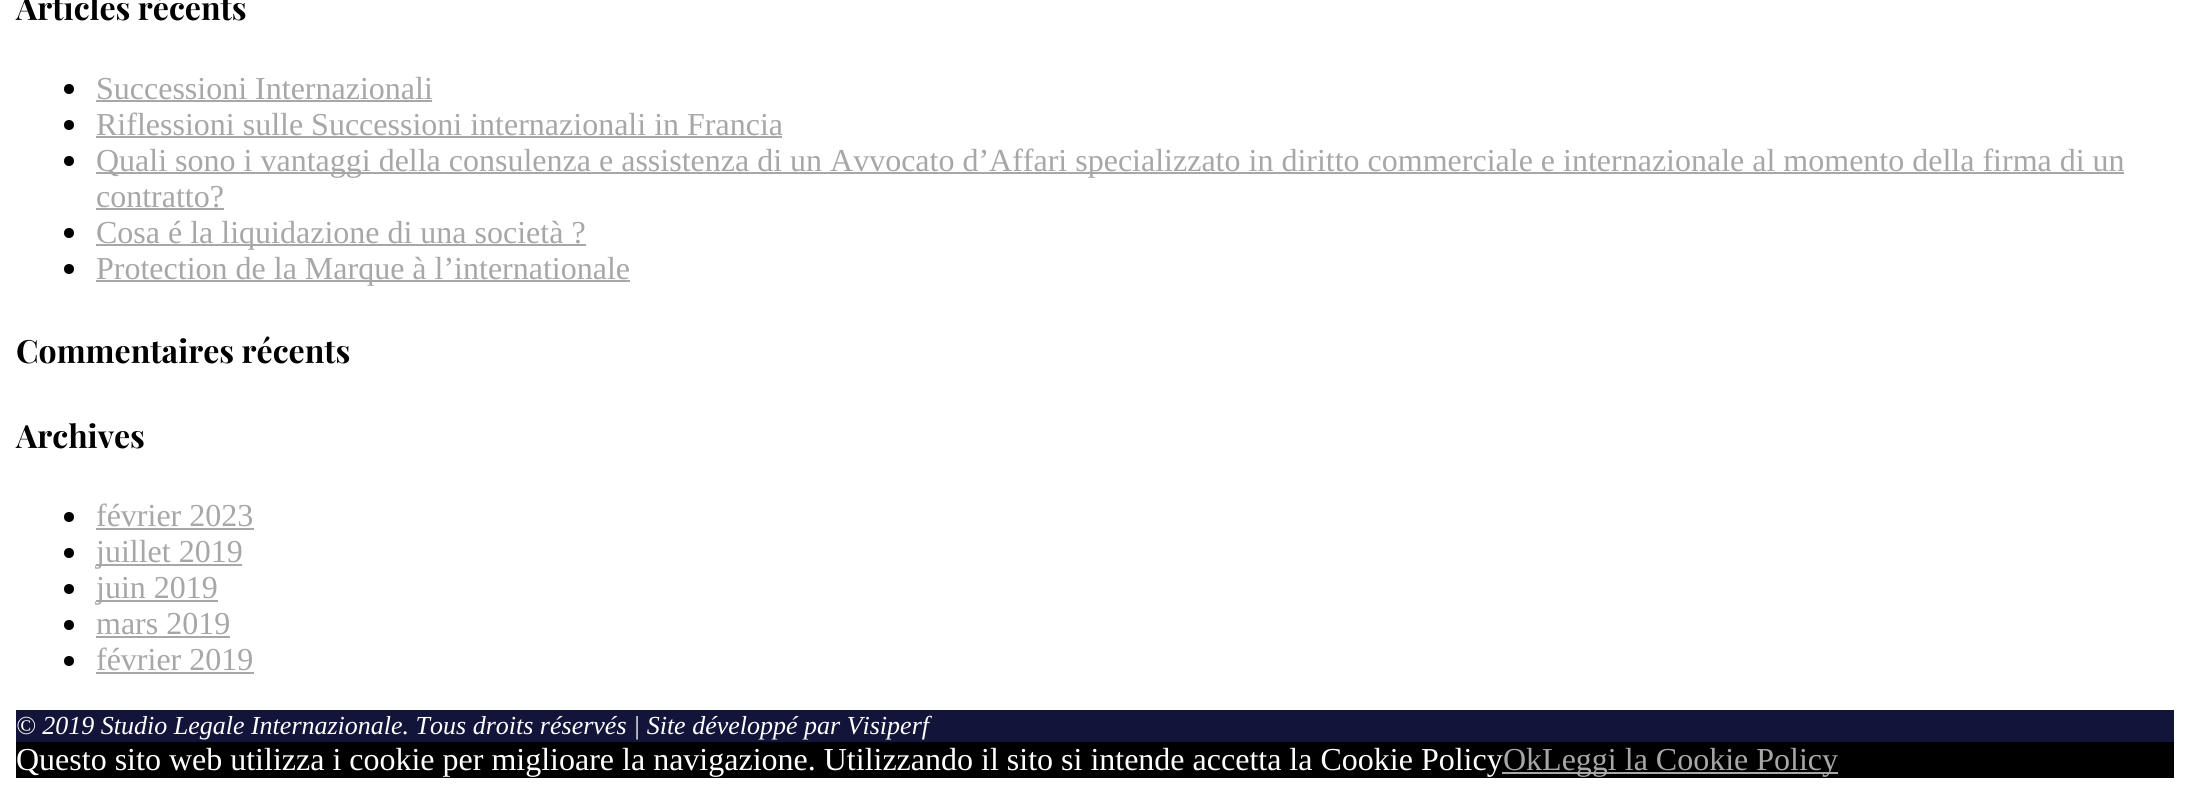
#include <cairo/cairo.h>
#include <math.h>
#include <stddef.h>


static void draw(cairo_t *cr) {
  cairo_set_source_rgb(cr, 1, 1, 1);
  cairo_paint(cr);
  cairo_set_source_rgb(cr, 0, 0, 0);
  cairo_arc(cr, 69, 89, 5, 0, 2 * M_PI);
  cairo_fill(cr);
  cairo_set_source_rgb(cr, 167 / 255.0, 167 / 255.0, 167 / 255.0);
  cairo_rectangle(cr, 96, 100, 336, 2);
  cairo_fill(cr);
  cairo_set_source_rgb(cr, 0, 0, 0);
  cairo_arc(cr, 69, 125, 5, 0, 2 * M_PI);
  cairo_fill(cr);
  cairo_set_source_rgb(cr, 167 / 255.0, 167 / 255.0, 167 / 255.0);
  cairo_rectangle(cr, 96, 136, 686, 2);
  cairo_fill(cr);
  cairo_set_source_rgb(cr, 0, 0, 0);
  cairo_arc(cr, 69, 161, 5, 0, 2 * M_PI);
  cairo_fill(cr);
  cairo_set_source_rgb(cr, 167 / 255.0, 167 / 255.0, 167 / 255.0);
  cairo_rectangle(cr, 96, 172, 2028, 2);
  cairo_fill(cr);
  cairo_rectangle(cr, 96, 208, 128, 2);
  cairo_fill(cr);
  cairo_set_source_rgb(cr, 0, 0, 0);
  cairo_arc(cr, 69, 233, 5, 0, 2 * M_PI);
  cairo_fill(cr);
  cairo_set_source_rgb(cr, 167 / 255.0, 167 / 255.0, 167 / 255.0);
  cairo_rectangle(cr, 96, 244, 490, 2);
  cairo_fill(cr);
  cairo_set_source_rgb(cr, 0, 0, 0);
  cairo_arc(cr, 69, 269, 5, 0, 2 * M_PI);
  cairo_fill(cr);
  cairo_set_source_rgb(cr, 167 / 255.0, 167 / 255.0, 167 / 255.0);
  cairo_rectangle(cr, 96, 280, 534, 2);
  cairo_fill(cr);
  cairo_set_source_rgb(cr, 0, 0, 0);
  cairo_arc(cr, 69, 517, 5, 0, 2 * M_PI);
  cairo_fill(cr);
  cairo_set_source_rgb(cr, 167 / 255.0, 167 / 255.0, 167 / 255.0);
  cairo_rectangle(cr, 96, 528, 158, 2);
  cairo_fill(cr);
  cairo_set_source_rgb(cr, 0, 0, 0);
  cairo_arc(cr, 69, 553, 5, 0, 2 * M_PI);
  cairo_fill(cr);
  cairo_set_source_rgb(cr, 167 / 255.0, 167 / 255.0, 167 / 255.0);
  cairo_rectangle(cr, 96, 564, 146, 2);
  cairo_fill(cr);
  cairo_set_source_rgb(cr, 0, 0, 0);
  cairo_arc(cr, 69, 589, 5, 0, 2 * M_PI);
  cairo_fill(cr);
  cairo_set_source_rgb(cr, 167 / 255.0, 167 / 255.0, 167 / 255.0);
  cairo_rectangle(cr, 96, 600, 122, 2);
  cairo_fill(cr);
  cairo_set_source_rgb(cr, 0, 0, 0);
  cairo_arc(cr, 69, 625, 5, 0, 2 * M_PI);
  cairo_fill(cr);
  cairo_set_source_rgb(cr, 167 / 255.0, 167 / 255.0, 167 / 255.0);
  cairo_rectangle(cr, 96, 636, 134, 2);
  cairo_fill(cr);
  cairo_set_source_rgb(cr, 0, 0, 0);
  cairo_arc(cr, 69, 661, 5, 0, 2 * M_PI);
  cairo_fill(cr);
  cairo_set_source_rgb(cr, 167 / 255.0, 167 / 255.0, 167 / 255.0);
  cairo_rectangle(cr, 96, 672, 158, 2);
  cairo_fill(cr);
  cairo_set_source_rgb(cr, 18 / 255.0, 20 / 255.0, 58 / 255.0);
  cairo_rectangle(cr, 16, 710, 2158, 32);
  cairo_fill(cr);
  cairo_set_source_rgb(cr, 0, 0, 0);
  cairo_rectangle(cr, 16, 742, 2158, 36);
  cairo_fill(cr);
  cairo_select_font_face(cr, "Playfair Display", CAIRO_FONT_SLANT_NORMAL, CAIRO_FONT_WEIGHT_BOLD);
  cairo_set_font_size(cr, 32);
  cairo_move_to(cr, 16, 20);
  cairo_show_text(cr, "Articles récents");
  cairo_select_font_face(cr, "Liberation Serif", CAIRO_FONT_SLANT_NORMAL, CAIRO_FONT_WEIGHT_NORMAL);
  cairo_set_source_rgb(cr, 167 / 255.0, 167 / 255.0, 167 / 255.0);
  cairo_move_to(cr, 96, 99);
  cairo_show_text(cr, "Successioni Internazionali");
  cairo_move_to(cr, 96, 135);
  cairo_show_text(cr, "Riflessioni sulle Successioni internazionali in Francia");
  cairo_move_to(cr, 96, 171);
  cairo_show_text(cr, "Quali sono i vantaggi della consulenza e assistenza di un Avvocato d’Affari specializzato in diritto commerciale e internazionale al momento della firma di un");
  cairo_move_to(cr, 96, 207);
  cairo_show_text(cr, "contratto?");
  cairo_move_to(cr, 96, 243);
  cairo_show_text(cr, "Cosa é la liquidazione di una società ?");
  cairo_move_to(cr, 96, 279);
  cairo_show_text(cr, "Protection de la Marque à l’internationale");
  cairo_select_font_face(cr, "Playfair Display", CAIRO_FONT_SLANT_NORMAL, CAIRO_FONT_WEIGHT_BOLD);
  cairo_set_source_rgb(cr, 0, 0, 0);
  cairo_move_to(cr, 16, 363);
  cairo_show_text(cr, "Commentaires récents");
  cairo_move_to(cr, 16, 448);
  cairo_show_text(cr, "Archives");
  cairo_select_font_face(cr, "Liberation Serif", CAIRO_FONT_SLANT_NORMAL, CAIRO_FONT_WEIGHT_NORMAL);
  cairo_set_source_rgb(cr, 167 / 255.0, 167 / 255.0, 167 / 255.0);
  cairo_move_to(cr, 96, 526);
  cairo_show_text(cr, "février 2023");
  cairo_move_to(cr, 96, 562);
  cairo_show_text(cr, "juillet 2019");
  cairo_move_to(cr, 96, 598);
  cairo_show_text(cr, "juin 2019");
  cairo_move_to(cr, 96, 634);
  cairo_show_text(cr, "mars 2019");
  cairo_move_to(cr, 96, 670);
  cairo_show_text(cr, "février 2019");
  cairo_select_font_face(cr, "Liberation Serif", CAIRO_FONT_SLANT_ITALIC, CAIRO_FONT_WEIGHT_NORMAL);
  cairo_set_font_size(cr, 26);
  cairo_set_source_rgb(cr, 1, 1, 1);
  cairo_move_to(cr, 16, 734);
  cairo_show_text(cr, "© 2019 Studio Legale Internazionale. Tous droits réservés | Site développé par Visiperf");
  cairo_select_font_face(cr, "Liberation Serif", CAIRO_FONT_SLANT_NORMAL, CAIRO_FONT_WEIGHT_NORMAL);
  cairo_set_font_size(cr, 32);
  cairo_move_to(cr, 16, 770);
  cairo_show_text(cr, "Questo sito web utilizza i cookie per miglioare la navigazione. Utilizzando il sito si intende accetta la Cookie Policy");
  cairo_set_source_rgb(cr, 167 / 255.0, 167 / 255.0, 167 / 255.0);
  cairo_rectangle(cr, 1502, 772, 336, 2);
  cairo_fill(cr);
  cairo_move_to(cr, 1503, 770);
  cairo_show_text(cr, "OkLeggi la Cookie Policy");
}

int main(void) {
  cairo_surface_t *surface = cairo_image_surface_create(CAIRO_FORMAT_RGB24, 2190, 794);
  cairo_t *cr = cairo_create(surface);
  cairo_font_options_t *options = cairo_font_options_create();
  cairo_font_options_set_hint_metrics(options, CAIRO_HINT_METRICS_OFF);
  cairo_font_options_set_hint_style(options, CAIRO_HINT_STYLE_NONE);
  cairo_set_font_options(cr, options);
  cairo_set_miter_limit(cr, 4);
  draw(cr);
  cairo_surface_write_to_png(surface, "out.png");
  cairo_font_options_destroy(options);
  cairo_destroy(cr);
  cairo_surface_destroy(surface);
  return 0;
}
